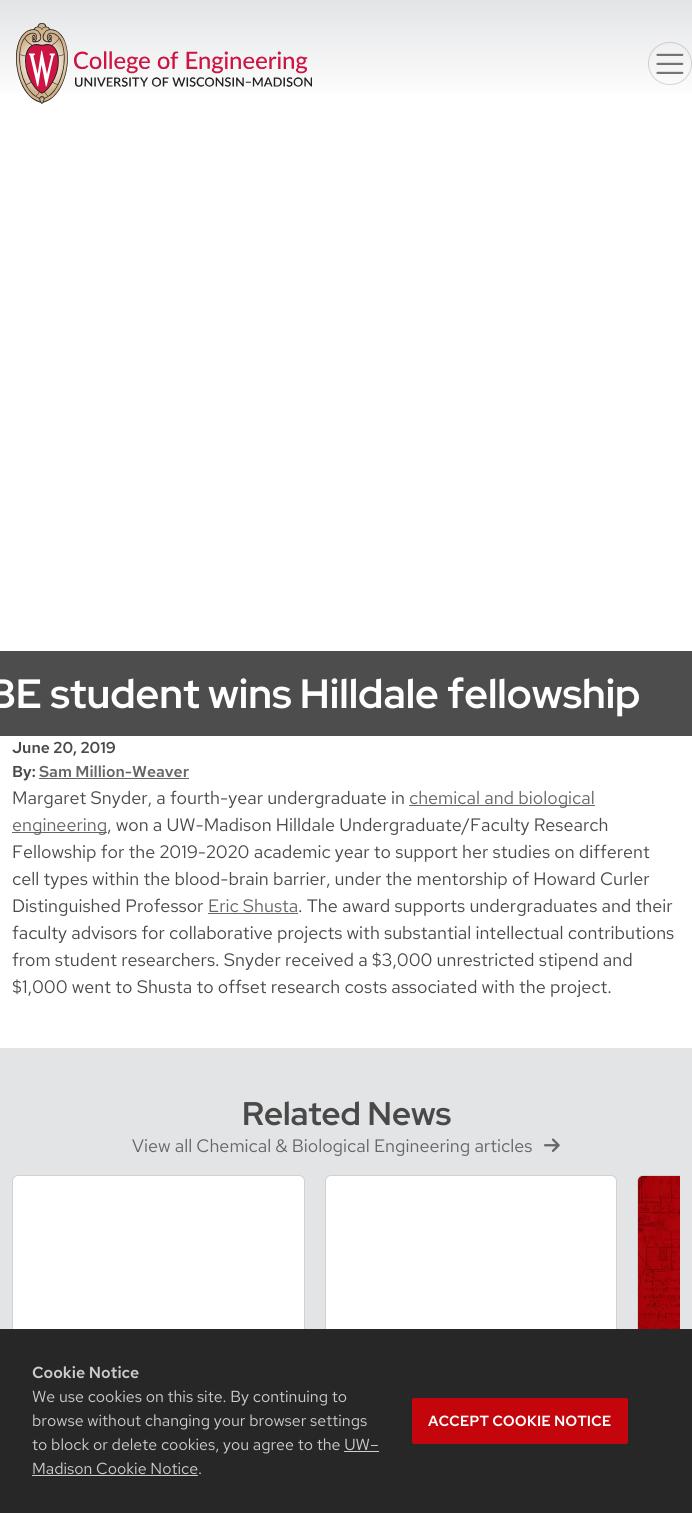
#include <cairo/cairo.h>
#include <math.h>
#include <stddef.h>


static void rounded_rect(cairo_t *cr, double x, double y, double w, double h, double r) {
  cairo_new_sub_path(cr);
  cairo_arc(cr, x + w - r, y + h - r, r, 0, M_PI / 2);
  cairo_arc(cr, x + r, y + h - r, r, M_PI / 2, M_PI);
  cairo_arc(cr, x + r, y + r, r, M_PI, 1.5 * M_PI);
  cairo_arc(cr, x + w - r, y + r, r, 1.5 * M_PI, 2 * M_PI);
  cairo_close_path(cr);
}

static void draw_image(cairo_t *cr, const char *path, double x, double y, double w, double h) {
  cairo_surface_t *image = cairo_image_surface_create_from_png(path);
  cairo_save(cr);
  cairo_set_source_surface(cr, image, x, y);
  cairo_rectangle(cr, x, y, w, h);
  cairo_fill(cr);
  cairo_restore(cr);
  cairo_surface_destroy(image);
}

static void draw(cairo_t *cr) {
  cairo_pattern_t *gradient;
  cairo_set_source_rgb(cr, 1, 1, 1);
  cairo_paint(cr);
  gradient = cairo_pattern_create_linear(346, 0, 346, 127);
  cairo_pattern_add_color_stop_rgba(gradient, 0, 227 / 255.0, 228 / 255.0, 230 / 255.0, 1);
  cairo_pattern_add_color_stop_rgba(gradient, 0.8, 1, 1, 1, 1);
  cairo_pattern_add_color_stop_rgba(gradient, 1, 1, 1, 1, 1);
  cairo_set_source(cr, gradient);
  cairo_pattern_destroy(gradient);
  cairo_rectangle(cr, 0, 0, 692, 93);
  cairo_fill(cr);
  draw_image(cr, "images/1.png", 16, 23, 296, 81);
  rounded_rect(cr, 648.5, 42.5, 43, 42, 21);
  cairo_set_source_rgba(cr, 0, 0, 0, 0.15);
  cairo_set_line_width(cr, 1);
  cairo_stroke(cr);
  draw_image(cr, "images/2.png", 656, 53, 28, 21);
  cairo_set_source_rgb(cr, 77 / 255.0, 77 / 255.0, 77 / 255.0);
  cairo_rectangle(cr, 0, 651, 692, 85);
  cairo_fill(cr);
  cairo_set_source_rgb(cr, 101 / 255.0, 102 / 255.0, 102 / 255.0);
  cairo_rectangle(cr, 39, 778, 150, 1);
  cairo_fill(cr);
  cairo_rectangle(cr, 409, 805, 186, 1);
  cairo_fill(cr);
  cairo_rectangle(cr, 12, 832, 95, 1);
  cairo_fill(cr);
  cairo_rectangle(cr, 208, 913, 90, 1);
  cairo_fill(cr);
  cairo_set_source_rgb(cr, 227 / 255.0, 228 / 255.0, 230 / 255.0);
  cairo_rectangle(cr, 0, 1048, 692, 281);
  cairo_fill(cr);
  draw_image(cr, "images/3.png", 544, 1138, 16, 14);
  cairo_set_source_rgb(cr, 1, 1, 1);
  rounded_rect(cr, 12, 1175, 293, 323, 6);
  cairo_fill(cr);
  rounded_rect(cr, 12.5, 1175.5, 292, 322, 5.5);
  cairo_set_source_rgba(cr, 0, 0, 0, 0.18);
  cairo_stroke(cr);
  cairo_set_source_rgb(cr, 1, 1, 1);
  rounded_rect(cr, 325, 1175, 292, 323, 6);
  cairo_fill(cr);
  rounded_rect(cr, 325.5, 1175.5, 291, 322, 5.5);
  cairo_set_source_rgba(cr, 0, 0, 0, 0.18);
  cairo_stroke(cr);
  cairo_set_source_rgb(cr, 1, 1, 1);
  cairo_new_path(cr);
  cairo_move_to(cr, 643, 1175);
  cairo_line_to(cr, 680, 1175);
  cairo_line_to(cr, 680, 1498);
  cairo_line_to(cr, 643, 1498);
  cairo_curve_to(cr, 639.5, 1498, 637, 1495.5, 637, 1492);
  cairo_line_to(cr, 637, 1181);
  cairo_curve_to(cr, 637, 1177.5, 639.5, 1175, 643, 1175);
  cairo_close_path(cr);
  cairo_fill(cr);
  cairo_save(cr);
  cairo_rectangle(cr, 12, 1175, 668, 323);
  cairo_clip(cr);
  rounded_rect(cr, 637.5, 1175.5, 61, 322, 5.5);
  cairo_set_source_rgba(cr, 0, 0, 0, 0.18);
  cairo_stroke(cr);
  cairo_restore(cr);
  cairo_set_source_rgb(cr, 169 / 255.0, 28 / 255.0, 29 / 255.0);
  cairo_new_path(cr);
  cairo_move_to(cr, 643, 1176);
  cairo_line_to(cr, 680, 1176);
  cairo_line_to(cr, 680, 1339);
  cairo_line_to(cr, 638, 1339);
  cairo_line_to(cr, 638, 1181);
  cairo_curve_to(cr, 638, 1178, 640, 1176, 643, 1176);
  cairo_close_path(cr);
  cairo_fill(cr);
  draw_image(cr, "images/4.png", 638, 1176, 42, 153);
  cairo_set_source_rgb(cr, 40 / 255.0, 39 / 255.0, 40 / 255.0);
  cairo_rectangle(cr, 0, 1329, 692, 184);
  cairo_fill(cr);
  cairo_set_source_rgb(cr, 204 / 255.0, 204 / 255.0, 204 / 255.0);
  cairo_rectangle(cr, 344, 1451, 35, 1);
  cairo_fill(cr);
  cairo_rectangle(cr, 32, 1475, 166, 1);
  cairo_fill(cr);
  cairo_set_source_rgb(cr, 197 / 255.0, 5 / 255.0, 12 / 255.0);
  rounded_rect(cr, 412, 1398, 216, 46, 2);
  cairo_fill(cr);
  cairo_select_font_face(cr, "Red Hat Display SemiBold", CAIRO_FONT_SLANT_NORMAL, CAIRO_FONT_WEIGHT_NORMAL);
  cairo_set_font_size(cr, 40.9);
  cairo_set_source_rgb(cr, 1, 1, 1);
  cairo_move_to(cr, -12, 708);
  cairo_show_text(cr, "BE student wins Hilldale fellowship");
  cairo_select_font_face(cr, "Red Hat Text SemiBold", CAIRO_FONT_SLANT_NORMAL, CAIRO_FONT_WEIGHT_NORMAL);
  cairo_set_font_size(cr, 15.75);
  cairo_set_source_rgb(cr, 74 / 255.0, 73 / 255.0, 74 / 255.0);
  cairo_move_to(cr, 12, 753);
  cairo_show_text(cr, "June 20, 2019");
  cairo_move_to(cr, 12, 777);
  cairo_show_text(cr, "By:");
  cairo_set_source_rgb(cr, 101 / 255.0, 102 / 255.0, 102 / 255.0);
  cairo_move_to(cr, 39, 777);
  cairo_show_text(cr, "Sam Million-Weaver");
  cairo_select_font_face(cr, "Red Hat Text", CAIRO_FONT_SLANT_NORMAL, CAIRO_FONT_WEIGHT_NORMAL);
  cairo_set_font_size(cr, 18);
  cairo_set_source_rgb(cr, 74 / 255.0, 73 / 255.0, 74 / 255.0);
  cairo_move_to(cr, 12, 804);
  cairo_show_text(cr, "Margaret Snyder, a fourth-year undergraduate in");
  cairo_set_source_rgb(cr, 101 / 255.0, 102 / 255.0, 102 / 255.0);
  cairo_move_to(cr, 409, 804);
  cairo_show_text(cr, "chemical and biological");
  cairo_move_to(cr, 12, 831);
  cairo_show_text(cr, "engineering");
  cairo_set_source_rgb(cr, 74 / 255.0, 73 / 255.0, 74 / 255.0);
  cairo_move_to(cr, 107, 831);
  cairo_show_text(cr, ", won a UW-Madison Hilldale Undergraduate/Faculty Research");
  cairo_move_to(cr, 12, 858);
  cairo_show_text(cr, "Fellowship for the 2019-2020 academic year to support her studies on different");
  cairo_move_to(cr, 12, 885);
  cairo_show_text(cr, "cell types within the blood-brain barrier, under the mentorship of Howard Curler");
  cairo_move_to(cr, 12, 912);
  cairo_show_text(cr, "Distinguished Professor");
  cairo_set_source_rgb(cr, 101 / 255.0, 102 / 255.0, 102 / 255.0);
  cairo_move_to(cr, 208, 912);
  cairo_show_text(cr, "Eric Shusta");
  cairo_set_source_rgb(cr, 74 / 255.0, 73 / 255.0, 74 / 255.0);
  cairo_move_to(cr, 298, 912);
  cairo_show_text(cr, ". The award supports undergraduates and their");
  cairo_move_to(cr, 12, 939);
  cairo_show_text(cr, "faculty advisors for collaborative projects with substantial intellectual contributions");
  cairo_move_to(cr, 12, 966);
  cairo_show_text(cr, "from student researchers. Snyder received a $3,000 unrestricted stipend and");
  cairo_move_to(cr, 12, 993);
  cairo_show_text(cr, "$1,000 went to Shusta to offset research costs associated with the project.");
  cairo_select_font_face(cr, "Red Hat Display SemiBold", CAIRO_FONT_SLANT_NORMAL, CAIRO_FONT_WEIGHT_NORMAL);
  cairo_set_font_size(cr, 32.75);
  cairo_move_to(cr, 242, 1125);
  cairo_show_text(cr, "Related News");
  cairo_select_font_face(cr, "Red Hat Text", CAIRO_FONT_SLANT_NORMAL, CAIRO_FONT_WEIGHT_NORMAL);
  cairo_set_font_size(cr, 18);
  cairo_set_source_rgb(cr, 101 / 255.0, 102 / 255.0, 102 / 255.0);
  cairo_move_to(cr, 132, 1152);
  cairo_show_text(cr, "View all Chemical & Biological Engineering articles");
  cairo_select_font_face(cr, "Red Hat Text SemiBold", CAIRO_FONT_SLANT_NORMAL, CAIRO_FONT_WEIGHT_NORMAL);
  cairo_set_font_size(cr, 16);
  cairo_set_source_rgb(cr, 204 / 255.0, 204 / 255.0, 204 / 255.0);
  cairo_move_to(cr, 32, 1378);
  cairo_show_text(cr, "Cookie Notice");
  cairo_select_font_face(cr, "Red Hat Text", CAIRO_FONT_SLANT_NORMAL, CAIRO_FONT_WEIGHT_NORMAL);
  cairo_move_to(cr, 32, 1402);
  cairo_show_text(cr, "We use cookies on this site. By continuing to");
  cairo_move_to(cr, 32, 1426);
  cairo_show_text(cr, "browse without changing your browser settings");
  cairo_move_to(cr, 32, 1450);
  cairo_show_text(cr, "to block or delete cookies, you agree to the UW–");
  cairo_move_to(cr, 32, 1474);
  cairo_show_text(cr, "Madison Cookie Notice.");
  cairo_select_font_face(cr, "Red Hat Text SemiBold", CAIRO_FONT_SLANT_NORMAL, CAIRO_FONT_WEIGHT_NORMAL);
  cairo_set_font_size(cr, 14.75);
  cairo_set_source_rgb(cr, 1, 1, 1);
  cairo_move_to(cr, 428, 1426);
  cairo_show_text(cr, "ACCEPT COOKIE NOTICE");
}

int main(void) {
  cairo_surface_t *surface = cairo_image_surface_create(CAIRO_FORMAT_RGB24, 692, 1513);
  cairo_t *cr = cairo_create(surface);
  cairo_font_options_t *options = cairo_font_options_create();
  cairo_font_options_set_hint_metrics(options, CAIRO_HINT_METRICS_OFF);
  cairo_font_options_set_hint_style(options, CAIRO_HINT_STYLE_NONE);
  cairo_set_font_options(cr, options);
  cairo_set_miter_limit(cr, 4);
  draw(cr);
  cairo_surface_write_to_png(surface, "out.png");
  cairo_font_options_destroy(options);
  cairo_destroy(cr);
  cairo_surface_destroy(surface);
  return 0;
}
